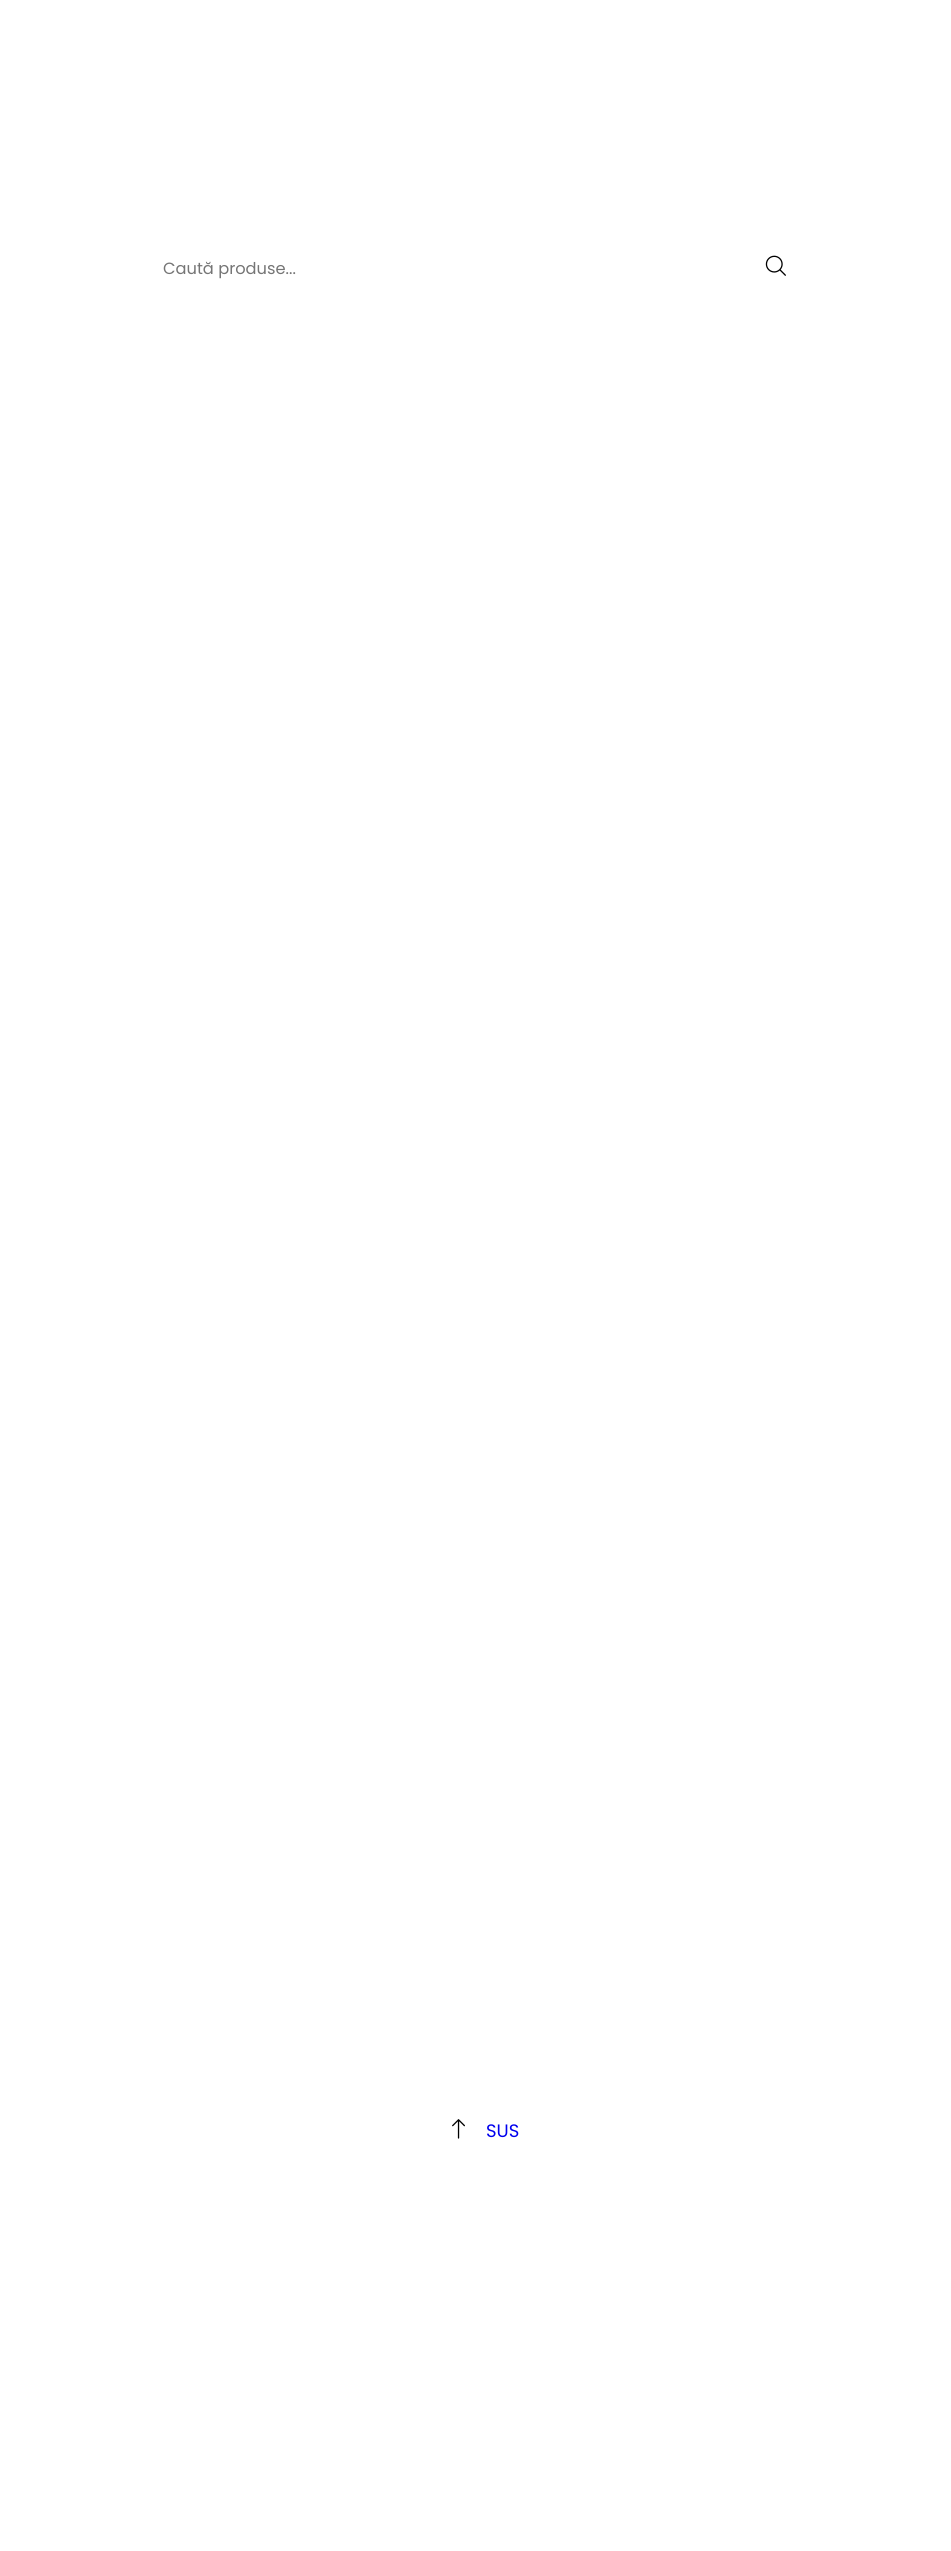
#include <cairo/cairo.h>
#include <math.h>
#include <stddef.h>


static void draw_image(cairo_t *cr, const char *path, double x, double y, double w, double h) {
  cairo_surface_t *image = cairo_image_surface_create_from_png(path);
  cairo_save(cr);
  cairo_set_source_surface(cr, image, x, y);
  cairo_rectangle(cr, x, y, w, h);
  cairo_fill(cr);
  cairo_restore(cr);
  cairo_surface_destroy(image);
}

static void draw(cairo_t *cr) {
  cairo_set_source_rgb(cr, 1, 1, 1);
  cairo_paint(cr);
  draw_image(cr, "images/1.png", 765, 255, 21, 21);
  draw_image(cr, "images/2.png", 452, 2119, 13, 20);
  cairo_select_font_face(cr, "Poppins", CAIRO_FONT_SLANT_NORMAL, CAIRO_FONT_WEIGHT_NORMAL);
  cairo_set_font_size(cr, 16.25);
  cairo_set_source_rgb(cr, 117 / 255.0, 117 / 255.0, 117 / 255.0);
  cairo_move_to(cr, 163, 274);
  cairo_show_text(cr, "Caută produse...");
  cairo_set_font_size(cr, 18);
  cairo_set_source_rgb(cr, 0, 0, 238 / 255.0);
  cairo_move_to(cr, 486, 2137);
  cairo_show_text(cr, "SUS");
}

int main(void) {
  cairo_surface_t *surface = cairo_image_surface_create(CAIRO_FORMAT_RGB24, 951, 2551);
  cairo_t *cr = cairo_create(surface);
  cairo_font_options_t *options = cairo_font_options_create();
  cairo_font_options_set_hint_metrics(options, CAIRO_HINT_METRICS_OFF);
  cairo_font_options_set_hint_style(options, CAIRO_HINT_STYLE_NONE);
  cairo_set_font_options(cr, options);
  cairo_set_miter_limit(cr, 4);
  draw(cr);
  cairo_surface_write_to_png(surface, "out.png");
  cairo_font_options_destroy(options);
  cairo_destroy(cr);
  cairo_surface_destroy(surface);
  return 0;
}
